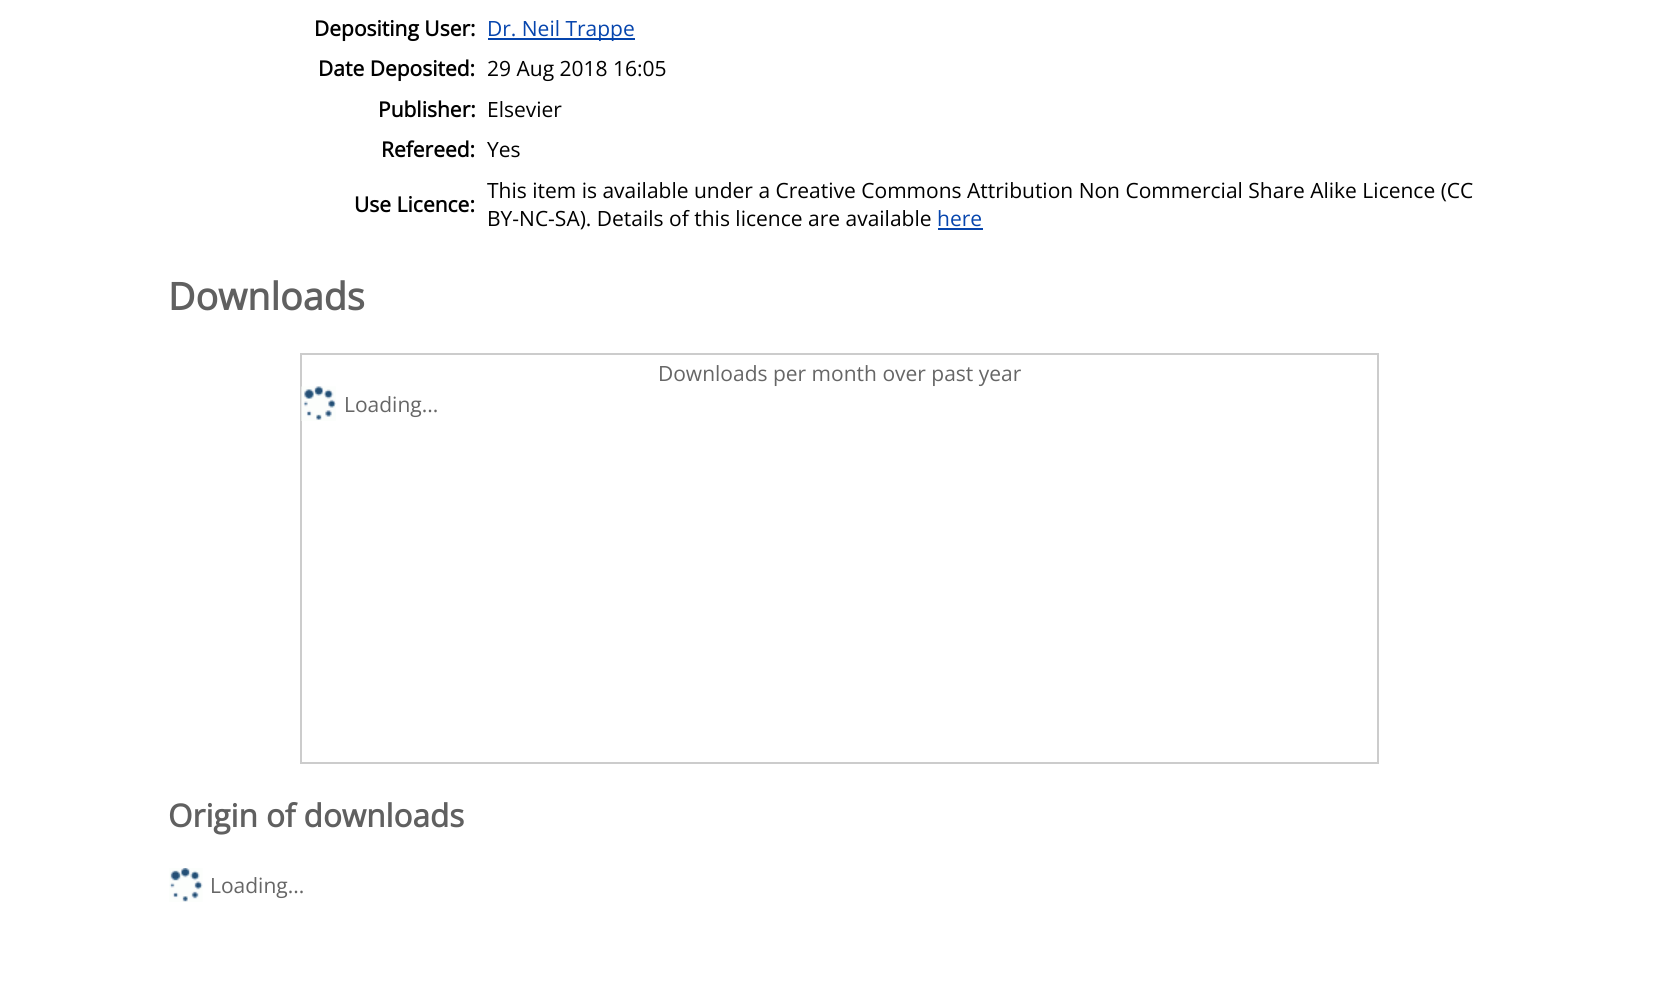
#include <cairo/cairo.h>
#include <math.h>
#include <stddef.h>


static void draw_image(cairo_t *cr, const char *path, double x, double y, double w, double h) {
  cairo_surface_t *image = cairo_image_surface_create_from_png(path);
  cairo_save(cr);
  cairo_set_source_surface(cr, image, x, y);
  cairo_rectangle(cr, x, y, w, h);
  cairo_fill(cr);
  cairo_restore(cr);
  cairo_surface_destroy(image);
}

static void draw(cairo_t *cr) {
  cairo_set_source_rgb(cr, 1, 1, 1);
  cairo_paint(cr);
  cairo_set_source_rgb(cr, 6 / 255.0, 69 / 255.0, 173 / 255.0);
  cairo_rectangle(cr, 488, 38, 147, 2);
  cairo_fill(cr);
  cairo_rectangle(cr, 938, 228, 45, 2);
  cairo_fill(cr);
  cairo_rectangle(cr, 301, 354, 1077, 409);
  cairo_set_source_rgb(cr, 204 / 255.0, 204 / 255.0, 204 / 255.0);
  cairo_stroke(cr);
  draw_image(cr, "images/1.png", 301, 386, 35, 35);
  draw_image(cr, "images/2.png", 169, 868, 34, 34);
  cairo_select_font_face(cr, "Open Sans", CAIRO_FONT_SLANT_NORMAL, CAIRO_FONT_WEIGHT_BOLD);
  cairo_set_font_size(cr, 21);
  cairo_set_source_rgb(cr, 0, 0, 0);
  cairo_move_to(cr, 314, 36);
  cairo_show_text(cr, "Depositing User:");
  cairo_select_font_face(cr, "Open Sans", CAIRO_FONT_SLANT_NORMAL, CAIRO_FONT_WEIGHT_NORMAL);
  cairo_set_source_rgb(cr, 6 / 255.0, 69 / 255.0, 173 / 255.0);
  cairo_move_to(cr, 487, 36);
  cairo_show_text(cr, "Dr. Neil Trappe");
  cairo_select_font_face(cr, "Open Sans", CAIRO_FONT_SLANT_NORMAL, CAIRO_FONT_WEIGHT_BOLD);
  cairo_set_source_rgb(cr, 0, 0, 0);
  cairo_move_to(cr, 318, 76);
  cairo_show_text(cr, "Date Deposited:");
  cairo_select_font_face(cr, "Open Sans", CAIRO_FONT_SLANT_NORMAL, CAIRO_FONT_WEIGHT_NORMAL);
  cairo_move_to(cr, 487, 76);
  cairo_show_text(cr, "29 Aug 2018 16:05");
  cairo_select_font_face(cr, "Open Sans", CAIRO_FONT_SLANT_NORMAL, CAIRO_FONT_WEIGHT_BOLD);
  cairo_move_to(cr, 378, 117);
  cairo_show_text(cr, "Publisher:");
  cairo_select_font_face(cr, "Open Sans", CAIRO_FONT_SLANT_NORMAL, CAIRO_FONT_WEIGHT_NORMAL);
  cairo_move_to(cr, 487, 117);
  cairo_show_text(cr, "Elsevier");
  cairo_select_font_face(cr, "Open Sans", CAIRO_FONT_SLANT_NORMAL, CAIRO_FONT_WEIGHT_BOLD);
  cairo_move_to(cr, 381, 157);
  cairo_show_text(cr, "Refereed:");
  cairo_select_font_face(cr, "Open Sans", CAIRO_FONT_SLANT_NORMAL, CAIRO_FONT_WEIGHT_NORMAL);
  cairo_move_to(cr, 487, 157);
  cairo_show_text(cr, "Yes");
  cairo_select_font_face(cr, "Open Sans", CAIRO_FONT_SLANT_NORMAL, CAIRO_FONT_WEIGHT_BOLD);
  cairo_move_to(cr, 354, 212);
  cairo_show_text(cr, "Use Licence:");
  cairo_select_font_face(cr, "Open Sans", CAIRO_FONT_SLANT_NORMAL, CAIRO_FONT_WEIGHT_NORMAL);
  cairo_move_to(cr, 487, 198);
  cairo_show_text(cr, "This item is available under a Creative Commons Attribution Non Commercial Share Alike Licence (CC");
  cairo_move_to(cr, 487, 226);
  cairo_show_text(cr, "BY-NC-SA). Details of this licence are available");
  cairo_set_source_rgb(cr, 6 / 255.0, 69 / 255.0, 173 / 255.0);
  cairo_move_to(cr, 937, 226);
  cairo_show_text(cr, "here");
  cairo_select_font_face(cr, "Open Sans", CAIRO_FONT_SLANT_NORMAL, CAIRO_FONT_WEIGHT_BOLD);
  cairo_set_font_size(cr, 37.75);
  cairo_set_source_rgb(cr, 96 / 255.0, 96 / 255.0, 96 / 255.0);
  cairo_move_to(cr, 168, 310);
  cairo_show_text(cr, "Downloads");
  cairo_select_font_face(cr, "Open Sans", CAIRO_FONT_SLANT_NORMAL, CAIRO_FONT_WEIGHT_NORMAL);
  cairo_set_font_size(cr, 21);
  cairo_set_source_rgb(cr, 102 / 255.0, 102 / 255.0, 102 / 255.0);
  cairo_move_to(cr, 658, 381);
  cairo_show_text(cr, "Downloads per month over past year");
  cairo_move_to(cr, 344, 412);
  cairo_show_text(cr, "Loading...");
  cairo_select_font_face(cr, "Open Sans", CAIRO_FONT_SLANT_NORMAL, CAIRO_FONT_WEIGHT_BOLD);
  cairo_set_font_size(cr, 31.5);
  cairo_set_source_rgb(cr, 96 / 255.0, 96 / 255.0, 96 / 255.0);
  cairo_move_to(cr, 168, 827);
  cairo_show_text(cr, "Origin of downloads");
  cairo_select_font_face(cr, "Open Sans", CAIRO_FONT_SLANT_NORMAL, CAIRO_FONT_WEIGHT_NORMAL);
  cairo_set_font_size(cr, 21);
  cairo_set_source_rgb(cr, 102 / 255.0, 102 / 255.0, 102 / 255.0);
  cairo_move_to(cr, 210, 893);
  cairo_show_text(cr, "Loading...");
}

int main(void) {
  cairo_surface_t *surface = cairo_image_surface_create(CAIRO_FORMAT_RGB24, 1678, 986);
  cairo_t *cr = cairo_create(surface);
  cairo_font_options_t *options = cairo_font_options_create();
  cairo_font_options_set_hint_metrics(options, CAIRO_HINT_METRICS_OFF);
  cairo_font_options_set_hint_style(options, CAIRO_HINT_STYLE_NONE);
  cairo_set_font_options(cr, options);
  cairo_set_miter_limit(cr, 4);
  draw(cr);
  cairo_surface_write_to_png(surface, "out.png");
  cairo_font_options_destroy(options);
  cairo_destroy(cr);
  cairo_surface_destroy(surface);
  return 0;
}
